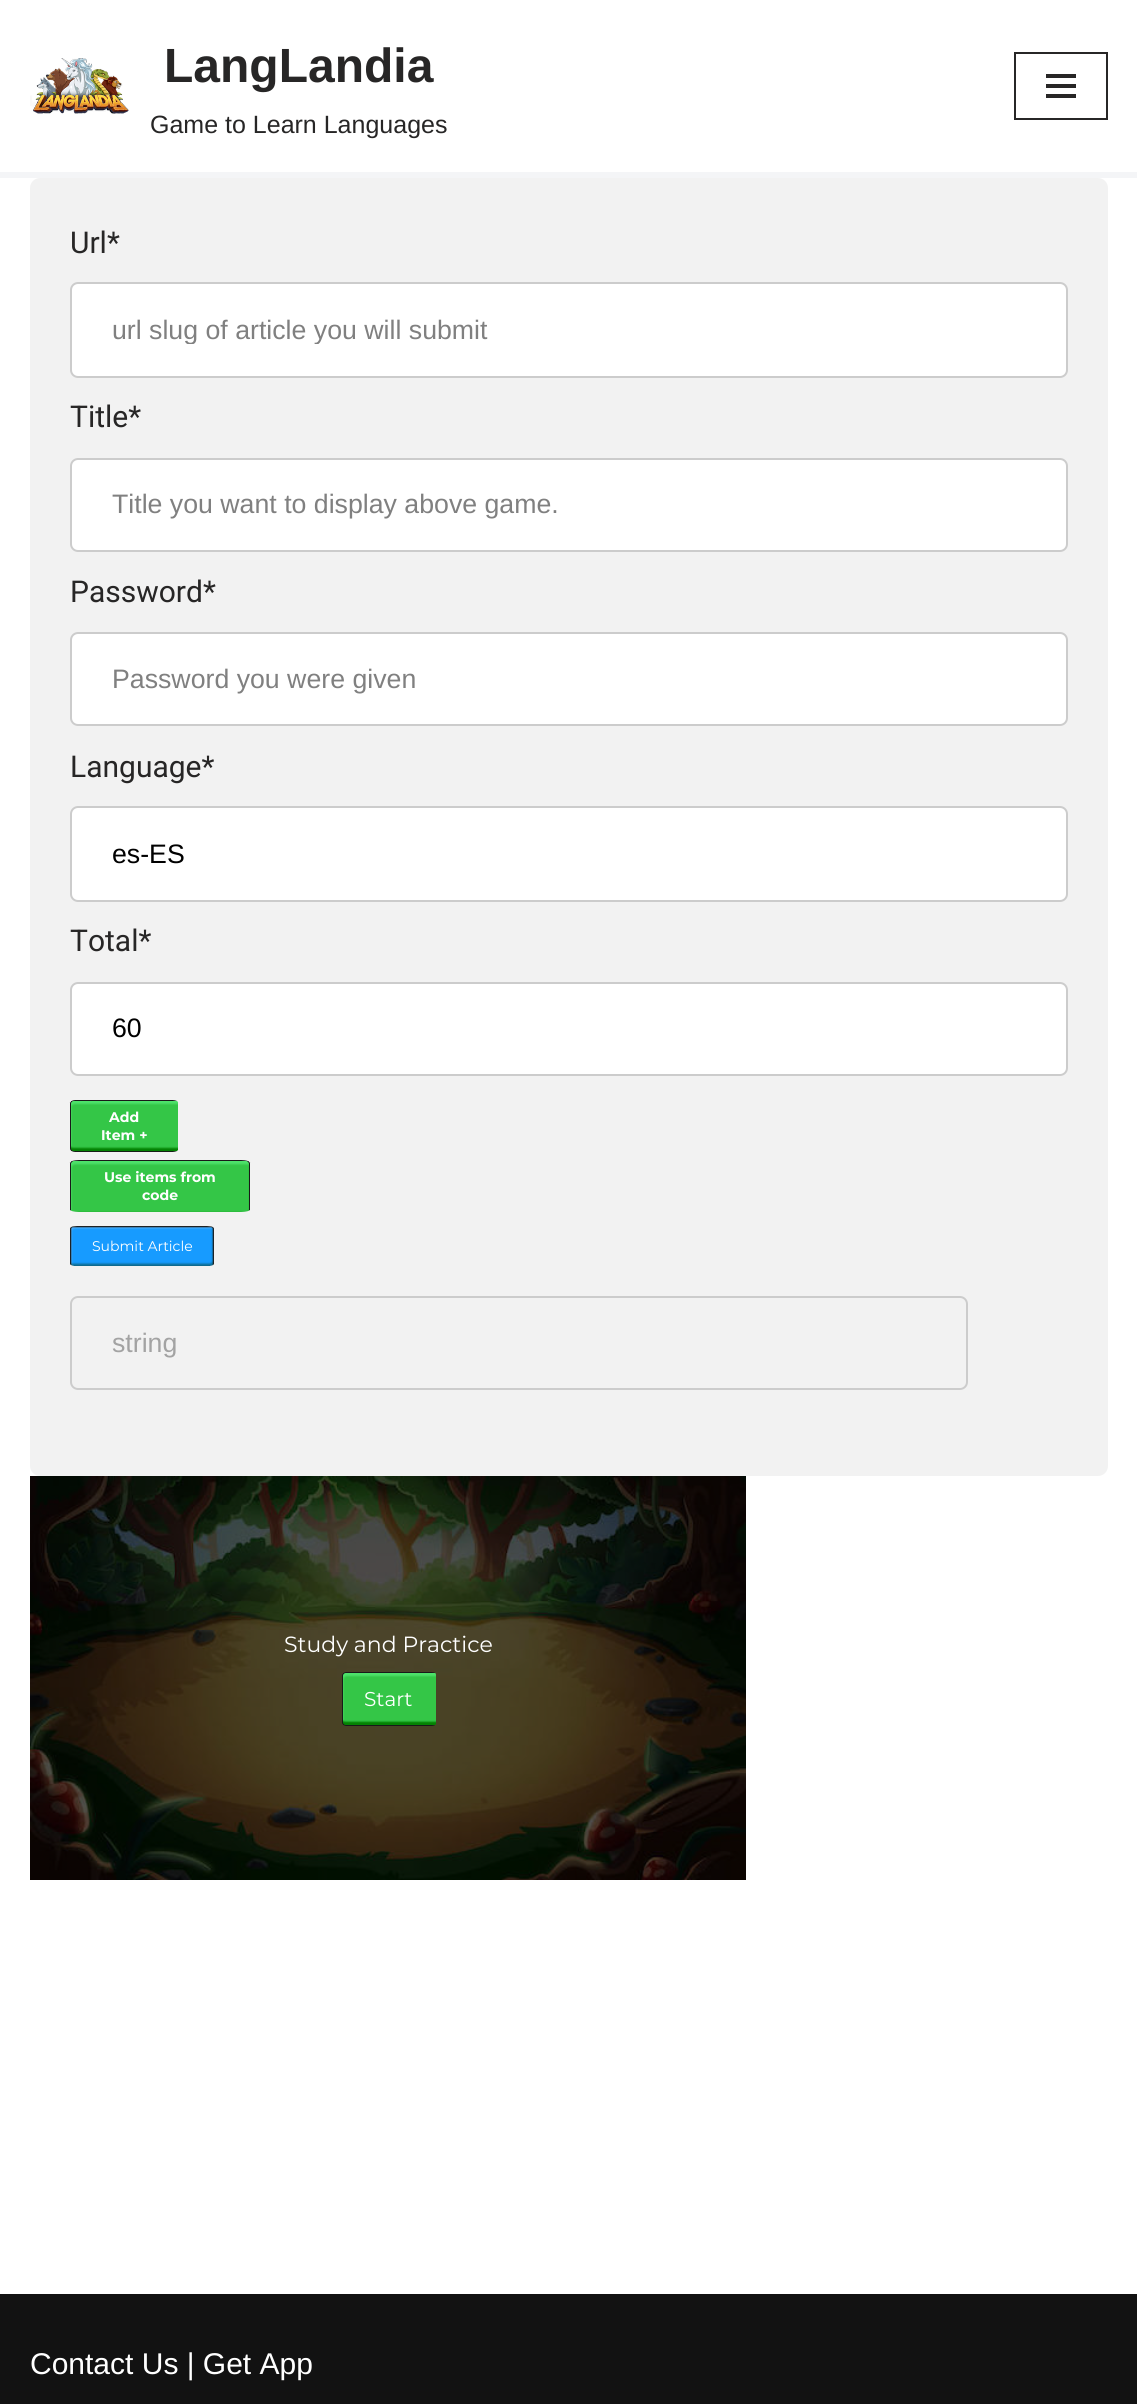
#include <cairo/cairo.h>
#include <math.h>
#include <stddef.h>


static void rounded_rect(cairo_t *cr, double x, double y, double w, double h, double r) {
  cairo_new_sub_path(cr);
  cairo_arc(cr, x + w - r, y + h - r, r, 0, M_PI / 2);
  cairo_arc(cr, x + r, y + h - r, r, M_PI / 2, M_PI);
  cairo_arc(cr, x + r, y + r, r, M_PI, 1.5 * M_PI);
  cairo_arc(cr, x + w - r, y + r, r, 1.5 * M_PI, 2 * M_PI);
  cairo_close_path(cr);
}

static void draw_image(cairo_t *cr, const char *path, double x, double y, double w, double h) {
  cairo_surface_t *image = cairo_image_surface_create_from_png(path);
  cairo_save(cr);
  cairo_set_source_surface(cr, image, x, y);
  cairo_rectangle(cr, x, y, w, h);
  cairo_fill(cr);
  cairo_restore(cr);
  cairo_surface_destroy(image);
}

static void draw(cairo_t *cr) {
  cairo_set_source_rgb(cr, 1, 1, 1);
  cairo_paint(cr);
  cairo_set_source_rgb(cr, 244 / 255.0, 245 / 255.0, 247 / 255.0);
  cairo_rectangle(cr, 0, 172, 1137, 6);
  cairo_fill(cr);
  draw_image(cr, "images/1.png", 30, 58, 99, 56);
  cairo_rectangle(cr, 1015, 53, 92, 66);
  cairo_set_source_rgb(cr, 39 / 255.0, 38 / 255.0, 38 / 255.0);
  cairo_stroke(cr);
  cairo_rectangle(cr, 1046, 74, 30, 4);
  cairo_fill(cr);
  cairo_rectangle(cr, 1046, 84, 30, 4);
  cairo_fill(cr);
  cairo_rectangle(cr, 1046, 94, 30, 4);
  cairo_fill(cr);
  cairo_set_source_rgb(cr, 242 / 255.0, 242 / 255.0, 242 / 255.0);
  rounded_rect(cr, 30, 178, 1078, 1298, 10);
  cairo_fill(cr);
  cairo_set_source_rgb(cr, 1, 1, 1);
  rounded_rect(cr, 71, 283, 996, 94, 7);
  cairo_fill_preserve(cr);
  cairo_set_source_rgb(cr, 204 / 255.0, 204 / 255.0, 204 / 255.0);
  cairo_stroke(cr);
  cairo_set_source_rgb(cr, 1, 1, 1);
  rounded_rect(cr, 71, 459, 996, 92, 7);
  cairo_fill_preserve(cr);
  cairo_set_source_rgb(cr, 204 / 255.0, 204 / 255.0, 204 / 255.0);
  cairo_stroke(cr);
  cairo_set_source_rgb(cr, 1, 1, 1);
  rounded_rect(cr, 71, 633, 996, 92, 7);
  cairo_fill_preserve(cr);
  cairo_set_source_rgb(cr, 204 / 255.0, 204 / 255.0, 204 / 255.0);
  cairo_stroke(cr);
  cairo_set_source_rgb(cr, 1, 1, 1);
  rounded_rect(cr, 71, 807, 996, 94, 7);
  cairo_fill_preserve(cr);
  cairo_set_source_rgb(cr, 204 / 255.0, 204 / 255.0, 204 / 255.0);
  cairo_stroke(cr);
  cairo_set_source_rgb(cr, 1, 1, 1);
  rounded_rect(cr, 71, 983, 996, 92, 7);
  cairo_fill_preserve(cr);
  cairo_set_source_rgb(cr, 204 / 255.0, 204 / 255.0, 204 / 255.0);
  cairo_stroke(cr);
  draw_image(cr, "images/2.png", 69, 1100, 110, 52);
  draw_image(cr, "images/3.png", 69, 1160, 182, 52);
  draw_image(cr, "images/4.png", 70, 1226, 144, 40);
  rounded_rect(cr, 71, 1297, 896, 92, 7);
  cairo_stroke(cr);
  draw_image(cr, "images/5.png", 30, 1476, 716, 404);
  draw_image(cr, "images/6.png", 342, 1672, 94, 54);
  cairo_set_source_rgb(cr, 18 / 255.0, 18 / 255.0, 18 / 255.0);
  cairo_rectangle(cr, 0, 2294, 1137, 110);
  cairo_fill(cr);
  cairo_select_font_face(cr, "Liberation Sans", CAIRO_FONT_SLANT_NORMAL, CAIRO_FONT_WEIGHT_BOLD);
  cairo_set_font_size(cr, 48);
  cairo_set_source_rgb(cr, 39 / 255.0, 38 / 255.0, 38 / 255.0);
  cairo_move_to(cr, 164, 82);
  cairo_show_text(cr, "LangLandia");
  cairo_select_font_face(cr, "Liberation Sans", CAIRO_FONT_SLANT_NORMAL, CAIRO_FONT_WEIGHT_NORMAL);
  cairo_set_font_size(cr, 25);
  cairo_move_to(cr, 150, 133);
  cairo_show_text(cr, "Game to Learn Languages");
  cairo_select_font_face(cr, "Roboto", CAIRO_FONT_SLANT_NORMAL, CAIRO_FONT_WEIGHT_NORMAL);
  cairo_set_font_size(cr, 30);
  cairo_move_to(cr, 70, 253);
  cairo_show_text(cr, "Url*");
  cairo_save(cr);
  cairo_rectangle(cr, 112, 314, 914, 30);
  cairo_clip(cr);
  cairo_select_font_face(cr, "Liberation Sans", CAIRO_FONT_SLANT_NORMAL, CAIRO_FONT_WEIGHT_NORMAL);
  cairo_set_font_size(cr, 26.7);
  cairo_set_source_rgb(cr, 128 / 255.0, 128 / 255.0, 128 / 255.0);
  cairo_move_to(cr, 112, 339);
  cairo_show_text(cr, "url slug of article you will submit");
  cairo_restore(cr);
  cairo_move_to(cr, 70, 427);
  cairo_show_text(cr, "Title*");
  cairo_select_font_face(cr, "Liberation Sans", CAIRO_FONT_SLANT_NORMAL, CAIRO_FONT_WEIGHT_NORMAL);
  cairo_set_font_size(cr, 26.7);
  cairo_set_source_rgb(cr, 128 / 255.0, 128 / 255.0, 128 / 255.0);
  cairo_move_to(cr, 112, 513);
  cairo_show_text(cr, "Title you want to display above game.");
  cairo_select_font_face(cr, "Roboto", CAIRO_FONT_SLANT_NORMAL, CAIRO_FONT_WEIGHT_NORMAL);
  cairo_set_font_size(cr, 30);
  cairo_set_source_rgb(cr, 39 / 255.0, 38 / 255.0, 38 / 255.0);
  cairo_move_to(cr, 70, 602);
  cairo_show_text(cr, "Password*");
  cairo_select_font_face(cr, "Liberation Sans", CAIRO_FONT_SLANT_NORMAL, CAIRO_FONT_WEIGHT_NORMAL);
  cairo_set_font_size(cr, 26.7);
  cairo_set_source_rgb(cr, 128 / 255.0, 128 / 255.0, 128 / 255.0);
  cairo_move_to(cr, 112, 688);
  cairo_show_text(cr, "Password you were given");
  cairo_select_font_face(cr, "Roboto", CAIRO_FONT_SLANT_NORMAL, CAIRO_FONT_WEIGHT_NORMAL);
  cairo_set_font_size(cr, 30);
  cairo_set_source_rgb(cr, 39 / 255.0, 38 / 255.0, 38 / 255.0);
  cairo_move_to(cr, 70, 777);
  cairo_show_text(cr, "Language*");
  cairo_select_font_face(cr, "Liberation Sans", CAIRO_FONT_SLANT_NORMAL, CAIRO_FONT_WEIGHT_NORMAL);
  cairo_set_font_size(cr, 26.7);
  cairo_set_source_rgb(cr, 0, 0, 0);
  cairo_move_to(cr, 112, 863);
  cairo_show_text(cr, "es-ES");
  cairo_select_font_face(cr, "Roboto", CAIRO_FONT_SLANT_NORMAL, CAIRO_FONT_WEIGHT_NORMAL);
  cairo_set_font_size(cr, 30);
  cairo_set_source_rgb(cr, 39 / 255.0, 38 / 255.0, 38 / 255.0);
  cairo_move_to(cr, 70, 951);
  cairo_show_text(cr, "Total*");
  cairo_select_font_face(cr, "Liberation Sans", CAIRO_FONT_SLANT_NORMAL, CAIRO_FONT_WEIGHT_NORMAL);
  cairo_set_font_size(cr, 26.7);
  cairo_set_source_rgb(cr, 0, 0, 0);
  cairo_move_to(cr, 112, 1037);
  cairo_show_text(cr, "60");
  cairo_select_font_face(cr, "Montserrat", CAIRO_FONT_SLANT_NORMAL, CAIRO_FONT_WEIGHT_BOLD);
  cairo_set_font_size(cr, 14);
  cairo_set_source_rgb(cr, 1, 1, 1);
  cairo_move_to(cr, 109, 1122);
  cairo_show_text(cr, "Add");
  cairo_move_to(cr, 101, 1140);
  cairo_show_text(cr, "Item +");
  cairo_move_to(cr, 104, 1182);
  cairo_show_text(cr, "Use items from");
  cairo_move_to(cr, 142, 1200);
  cairo_show_text(cr, "code");
  cairo_select_font_face(cr, "Montserrat", CAIRO_FONT_SLANT_NORMAL, CAIRO_FONT_WEIGHT_NORMAL);
  cairo_move_to(cr, 92, 1251);
  cairo_show_text(cr, "Submit Article");
  cairo_select_font_face(cr, "Liberation Sans", CAIRO_FONT_SLANT_NORMAL, CAIRO_FONT_WEIGHT_NORMAL);
  cairo_set_font_size(cr, 26.7);
  cairo_set_source_rgb(cr, 163 / 255.0, 163 / 255.0, 163 / 255.0);
  cairo_move_to(cr, 112, 1352);
  cairo_show_text(cr, "string");
  cairo_select_font_face(cr, "Montserrat", CAIRO_FONT_SLANT_NORMAL, CAIRO_FONT_WEIGHT_NORMAL);
  cairo_set_font_size(cr, 22);
  cairo_set_source_rgb(cr, 1, 1, 1);
  cairo_move_to(cr, 284, 1652);
  cairo_show_text(cr, "Study and Practice");
  cairo_set_font_size(cr, 20);
  cairo_move_to(cr, 364, 1706);
  cairo_show_text(cr, "Start");
  cairo_select_font_face(cr, "Liberation Sans", CAIRO_FONT_SLANT_NORMAL, CAIRO_FONT_WEIGHT_NORMAL);
  cairo_set_font_size(cr, 30);
  cairo_move_to(cr, 30, 2374);
  cairo_show_text(cr, "Contact Us | Get App");
}

int main(void) {
  cairo_surface_t *surface = cairo_image_surface_create(CAIRO_FORMAT_RGB24, 1137, 2404);
  cairo_t *cr = cairo_create(surface);
  cairo_font_options_t *options = cairo_font_options_create();
  cairo_font_options_set_hint_metrics(options, CAIRO_HINT_METRICS_OFF);
  cairo_font_options_set_hint_style(options, CAIRO_HINT_STYLE_NONE);
  cairo_set_font_options(cr, options);
  cairo_set_miter_limit(cr, 4);
  draw(cr);
  cairo_surface_write_to_png(surface, "out.png");
  cairo_font_options_destroy(options);
  cairo_destroy(cr);
  cairo_surface_destroy(surface);
  return 0;
}
